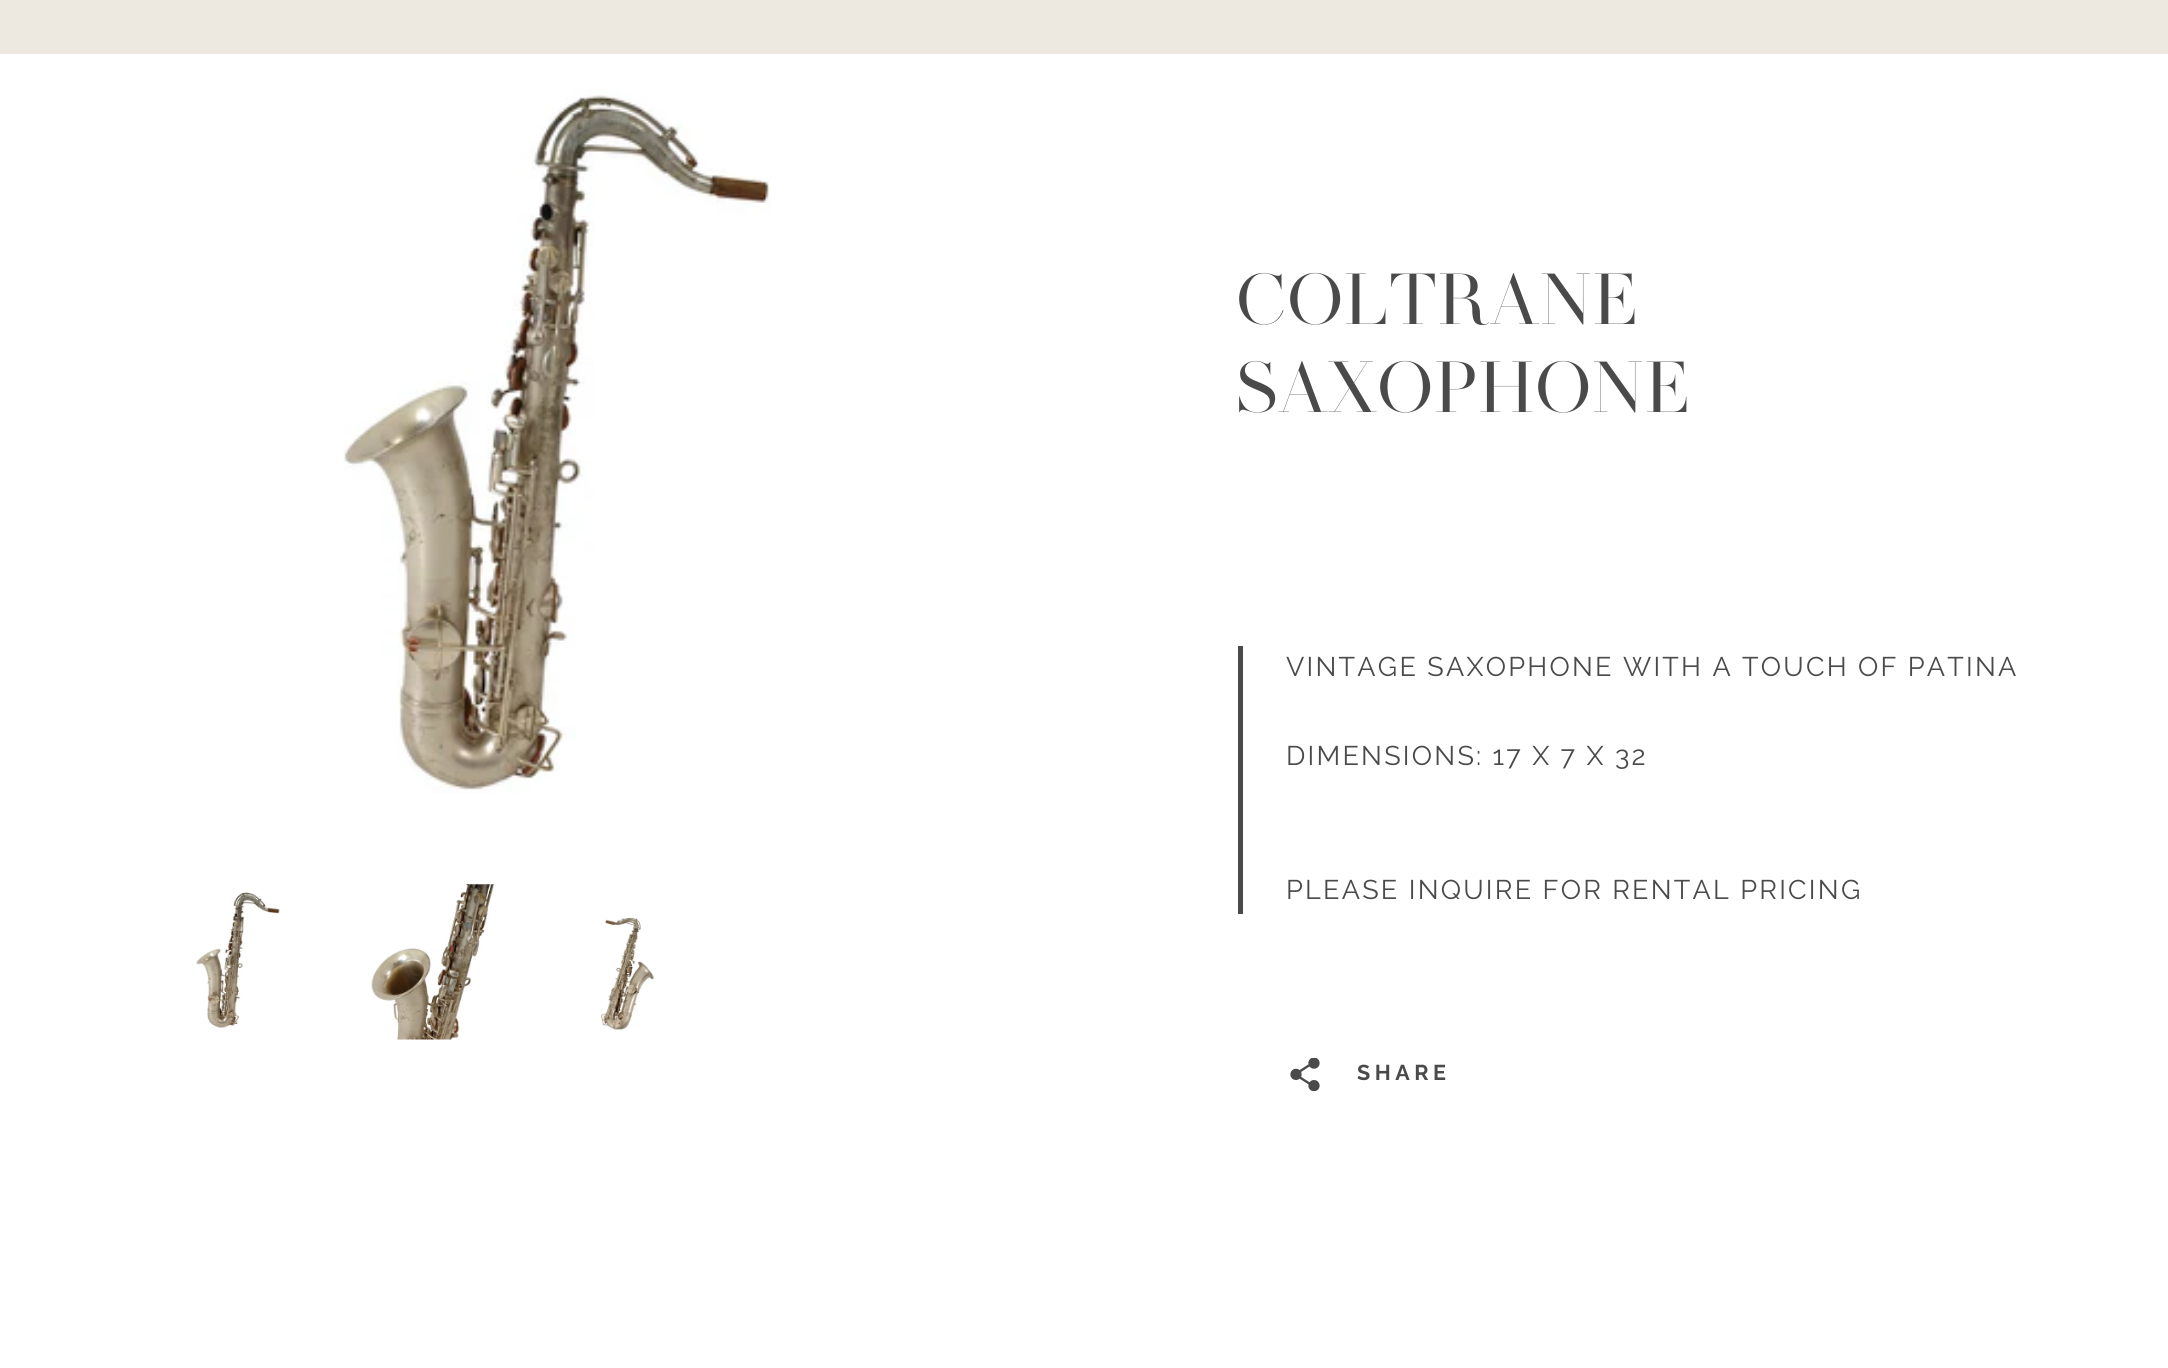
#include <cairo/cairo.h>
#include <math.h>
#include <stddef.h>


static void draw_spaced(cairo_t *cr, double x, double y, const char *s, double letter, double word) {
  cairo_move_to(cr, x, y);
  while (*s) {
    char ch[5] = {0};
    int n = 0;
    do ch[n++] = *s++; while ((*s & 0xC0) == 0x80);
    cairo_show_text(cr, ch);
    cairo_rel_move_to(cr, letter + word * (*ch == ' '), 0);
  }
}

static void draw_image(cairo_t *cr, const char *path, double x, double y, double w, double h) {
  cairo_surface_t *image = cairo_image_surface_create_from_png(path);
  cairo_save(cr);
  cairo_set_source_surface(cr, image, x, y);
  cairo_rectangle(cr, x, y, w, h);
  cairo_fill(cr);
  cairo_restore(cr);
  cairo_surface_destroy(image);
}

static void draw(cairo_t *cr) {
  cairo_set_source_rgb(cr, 1, 1, 1);
  cairo_paint(cr);
  cairo_set_source_rgb(cr, 237 / 255.0, 233 / 255.0, 225 / 255.0);
  cairo_rectangle(cr, 0, 0, 2168, 54);
  cairo_fill(cr);
  draw_image(cr, "images/1.png", 343, 89, 428, 705);
  draw_image(cr, "images/2.png", 196, 891, 84, 137);
  draw_image(cr, "images/3.png", 371, 884, 123, 156);
  draw_image(cr, "images/4.png", 601, 917, 54, 113);
  cairo_set_source_rgb(cr, 74 / 255.0, 74 / 255.0, 74 / 255.0);
  cairo_rectangle(cr, 1238, 646, 5, 268);
  cairo_fill(cr);
  draw_image(cr, "images/5.png", 1290, 1058, 30, 33);
  cairo_select_font_face(cr, "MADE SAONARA", CAIRO_FONT_SLANT_NORMAL, CAIRO_FONT_WEIGHT_NORMAL);
  cairo_set_font_size(cr, 72);
  draw_spaced(cr, 1237, 324, "COLTRANE", 2.25, 0);
  draw_spaced(cr, 1237, 412, "SAXOPHONE", 2.25, 0);
  cairo_select_font_face(cr, "Raleway", CAIRO_FONT_SLANT_NORMAL, CAIRO_FONT_WEIGHT_NORMAL);
  cairo_set_font_size(cr, 27);
  draw_spaced(cr, 1286, 676, "VINTAGE SAXOPHONE WITH A TOUCH OF PATINA", 2.25, 0);
  draw_spaced(cr, 1286, 765, "DIMENSIONS: 17 X 7 X 32", 2.25, 0);
  draw_spaced(cr, 1286, 899, "PLEASE INQUIRE FOR RENTAL PRICING", 2.25, 0);
  cairo_select_font_face(cr, "Raleway", CAIRO_FONT_SLANT_NORMAL, CAIRO_FONT_WEIGHT_BOLD);
  cairo_set_font_size(cr, 21.5);
  draw_spaced(cr, 1357, 1080, "SHARE", 4.5, 0);
}

int main(void) {
  cairo_surface_t *surface = cairo_image_surface_create(CAIRO_FORMAT_RGB24, 2168, 1368);
  cairo_t *cr = cairo_create(surface);
  cairo_font_options_t *options = cairo_font_options_create();
  cairo_font_options_set_hint_metrics(options, CAIRO_HINT_METRICS_OFF);
  cairo_font_options_set_hint_style(options, CAIRO_HINT_STYLE_NONE);
  cairo_set_font_options(cr, options);
  cairo_set_miter_limit(cr, 4);
  draw(cr);
  cairo_surface_write_to_png(surface, "out.png");
  cairo_font_options_destroy(options);
  cairo_destroy(cr);
  cairo_surface_destroy(surface);
  return 0;
}
